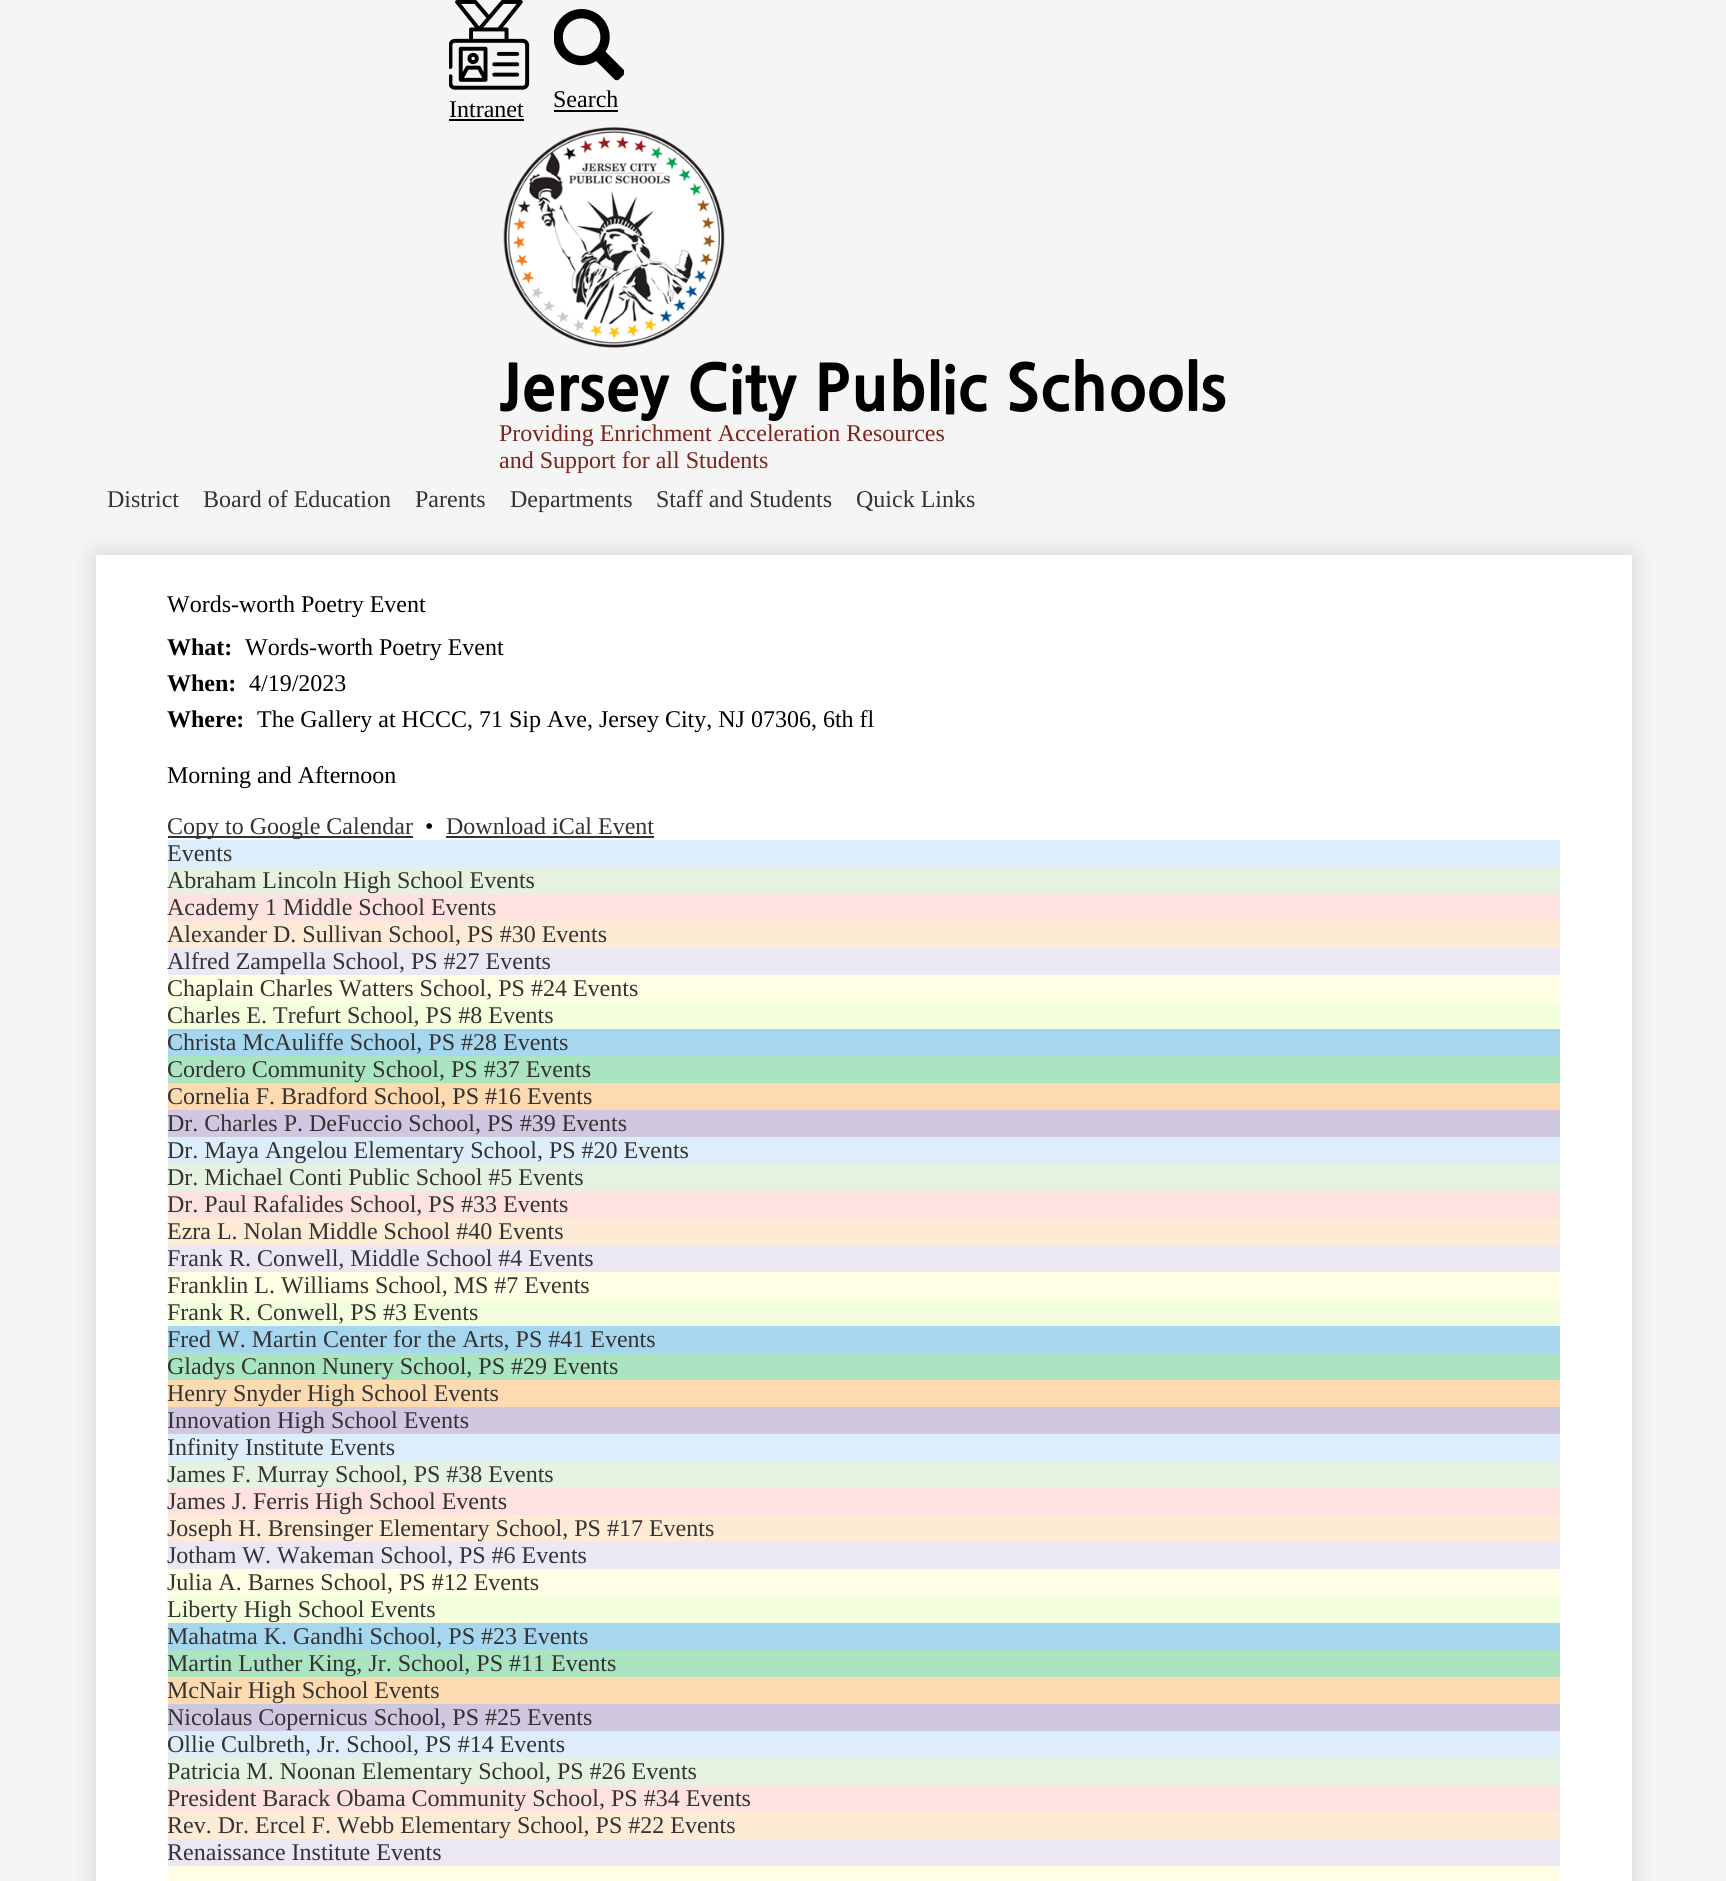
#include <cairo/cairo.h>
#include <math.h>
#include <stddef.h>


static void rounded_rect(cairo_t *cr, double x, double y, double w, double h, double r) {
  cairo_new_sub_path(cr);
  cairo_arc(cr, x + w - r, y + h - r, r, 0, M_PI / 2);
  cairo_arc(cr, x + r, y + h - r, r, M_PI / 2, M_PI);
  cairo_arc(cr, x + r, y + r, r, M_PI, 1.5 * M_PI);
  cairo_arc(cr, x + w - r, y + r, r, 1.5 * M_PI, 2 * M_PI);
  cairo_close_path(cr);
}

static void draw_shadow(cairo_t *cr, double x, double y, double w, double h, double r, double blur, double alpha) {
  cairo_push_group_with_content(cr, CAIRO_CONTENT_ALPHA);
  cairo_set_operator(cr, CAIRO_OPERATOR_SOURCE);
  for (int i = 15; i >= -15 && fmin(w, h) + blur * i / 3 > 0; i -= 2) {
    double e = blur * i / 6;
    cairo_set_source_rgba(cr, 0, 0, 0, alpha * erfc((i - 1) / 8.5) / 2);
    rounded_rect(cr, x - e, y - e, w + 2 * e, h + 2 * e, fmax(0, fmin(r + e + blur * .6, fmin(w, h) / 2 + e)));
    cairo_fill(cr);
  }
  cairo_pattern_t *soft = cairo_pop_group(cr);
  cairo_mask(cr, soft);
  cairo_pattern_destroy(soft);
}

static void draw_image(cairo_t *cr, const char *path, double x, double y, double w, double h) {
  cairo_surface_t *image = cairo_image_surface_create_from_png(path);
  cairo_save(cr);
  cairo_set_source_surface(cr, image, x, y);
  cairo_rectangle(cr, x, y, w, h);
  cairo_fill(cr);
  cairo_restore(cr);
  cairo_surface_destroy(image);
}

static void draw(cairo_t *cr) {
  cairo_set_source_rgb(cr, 245 / 255.0, 245 / 255.0, 245 / 255.0);
  cairo_paint(cr);
  draw_image(cr, "images/1.png", 449, 0, 81, 90);
  cairo_set_source_rgb(cr, 0, 0, 0);
  cairo_rectangle(cr, 449, 119, 75, 2);
  cairo_fill(cr);
  draw_image(cr, "images/2.png", 554, 9, 70, 72);
  cairo_rectangle(cr, 554, 110, 64, 2);
  cairo_fill(cr);
  draw_image(cr, "images/3.png", 503, 127, 222, 221);
  cairo_set_source_rgb(cr, 0, 0, 0);
  draw_shadow(cr, 96, 555, 1536, 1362, 0, 12, 0.15);
  cairo_set_source_rgb(cr, 1, 1, 1);
  cairo_rectangle(cr, 96, 555, 1536, 1326);
  cairo_fill(cr);
  cairo_set_source_rgb(cr, 51 / 255.0, 51 / 255.0, 51 / 255.0);
  cairo_rectangle(cr, 168, 836, 245, 2);
  cairo_fill(cr);
  cairo_rectangle(cr, 446, 836, 208, 2);
  cairo_fill(cr);
  cairo_set_source_rgb(cr, 221 / 255.0, 238 / 255.0, 250 / 255.0);
  cairo_rectangle(cr, 168, 840, 1392, 27);
  cairo_fill(cr);
  cairo_set_source_rgb(cr, 230 / 255.0, 242 / 255.0, 224 / 255.0);
  cairo_rectangle(cr, 168, 867, 1392, 27);
  cairo_fill(cr);
  cairo_set_source_rgb(cr, 253 / 255.0, 226 / 255.0, 224 / 255.0);
  cairo_rectangle(cr, 168, 894, 1392, 27);
  cairo_fill(cr);
  cairo_set_source_rgb(cr, 254 / 255.0, 235 / 255.0, 214 / 255.0);
  cairo_rectangle(cr, 168, 921, 1392, 27);
  cairo_fill(cr);
  cairo_set_source_rgb(cr, 235 / 255.0, 231 / 255.0, 243 / 255.0);
  cairo_rectangle(cr, 168, 948, 1392, 27);
  cairo_fill(cr);
  cairo_set_source_rgb(cr, 1, 253 / 255.0, 227 / 255.0);
  cairo_rectangle(cr, 168, 975, 1392, 27);
  cairo_fill(cr);
  cairo_set_source_rgb(cr, 243 / 255.0, 1, 220 / 255.0);
  cairo_rectangle(cr, 168, 1002, 1392, 27);
  cairo_fill(cr);
  cairo_set_source_rgb(cr, 166 / 255.0, 215 / 255.0, 239 / 255.0);
  cairo_rectangle(cr, 168, 1029, 1392, 27);
  cairo_fill(cr);
  cairo_set_source_rgb(cr, 171 / 255.0, 228 / 255.0, 192 / 255.0);
  cairo_rectangle(cr, 168, 1056, 1392, 27);
  cairo_fill(cr);
  cairo_set_source_rgb(cr, 253 / 255.0, 218 / 255.0, 176 / 255.0);
  cairo_rectangle(cr, 168, 1083, 1392, 27);
  cairo_fill(cr);
  cairo_set_source_rgb(cr, 208 / 255.0, 200 / 255.0, 225 / 255.0);
  cairo_rectangle(cr, 168, 1110, 1392, 27);
  cairo_fill(cr);
  cairo_set_source_rgb(cr, 221 / 255.0, 238 / 255.0, 250 / 255.0);
  cairo_rectangle(cr, 168, 1137, 1392, 27);
  cairo_fill(cr);
  cairo_set_source_rgb(cr, 230 / 255.0, 242 / 255.0, 224 / 255.0);
  cairo_rectangle(cr, 168, 1164, 1392, 27);
  cairo_fill(cr);
  cairo_set_source_rgb(cr, 253 / 255.0, 226 / 255.0, 224 / 255.0);
  cairo_rectangle(cr, 168, 1191, 1392, 27);
  cairo_fill(cr);
  cairo_set_source_rgb(cr, 254 / 255.0, 235 / 255.0, 214 / 255.0);
  cairo_rectangle(cr, 168, 1218, 1392, 27);
  cairo_fill(cr);
  cairo_set_source_rgb(cr, 235 / 255.0, 231 / 255.0, 243 / 255.0);
  cairo_rectangle(cr, 168, 1245, 1392, 27);
  cairo_fill(cr);
  cairo_set_source_rgb(cr, 1, 253 / 255.0, 227 / 255.0);
  cairo_rectangle(cr, 168, 1272, 1392, 27);
  cairo_fill(cr);
  cairo_set_source_rgb(cr, 243 / 255.0, 1, 220 / 255.0);
  cairo_rectangle(cr, 168, 1299, 1392, 27);
  cairo_fill(cr);
  cairo_set_source_rgb(cr, 166 / 255.0, 215 / 255.0, 239 / 255.0);
  cairo_rectangle(cr, 168, 1326, 1392, 27);
  cairo_fill(cr);
  cairo_set_source_rgb(cr, 171 / 255.0, 228 / 255.0, 192 / 255.0);
  cairo_rectangle(cr, 168, 1353, 1392, 27);
  cairo_fill(cr);
  cairo_set_source_rgb(cr, 253 / 255.0, 218 / 255.0, 176 / 255.0);
  cairo_rectangle(cr, 168, 1380, 1392, 27);
  cairo_fill(cr);
  cairo_set_source_rgb(cr, 208 / 255.0, 200 / 255.0, 225 / 255.0);
  cairo_rectangle(cr, 168, 1407, 1392, 27);
  cairo_fill(cr);
  cairo_set_source_rgb(cr, 221 / 255.0, 238 / 255.0, 250 / 255.0);
  cairo_rectangle(cr, 168, 1434, 1392, 27);
  cairo_fill(cr);
  cairo_set_source_rgb(cr, 230 / 255.0, 242 / 255.0, 224 / 255.0);
  cairo_rectangle(cr, 168, 1461, 1392, 27);
  cairo_fill(cr);
  cairo_set_source_rgb(cr, 253 / 255.0, 226 / 255.0, 224 / 255.0);
  cairo_rectangle(cr, 168, 1488, 1392, 27);
  cairo_fill(cr);
  cairo_set_source_rgb(cr, 254 / 255.0, 235 / 255.0, 214 / 255.0);
  cairo_rectangle(cr, 168, 1515, 1392, 27);
  cairo_fill(cr);
  cairo_set_source_rgb(cr, 235 / 255.0, 231 / 255.0, 243 / 255.0);
  cairo_rectangle(cr, 168, 1542, 1392, 27);
  cairo_fill(cr);
  cairo_set_source_rgb(cr, 1, 253 / 255.0, 227 / 255.0);
  cairo_rectangle(cr, 168, 1569, 1392, 27);
  cairo_fill(cr);
  cairo_set_source_rgb(cr, 243 / 255.0, 1, 220 / 255.0);
  cairo_rectangle(cr, 168, 1596, 1392, 27);
  cairo_fill(cr);
  cairo_set_source_rgb(cr, 166 / 255.0, 215 / 255.0, 239 / 255.0);
  cairo_rectangle(cr, 168, 1623, 1392, 27);
  cairo_fill(cr);
  cairo_set_source_rgb(cr, 171 / 255.0, 228 / 255.0, 192 / 255.0);
  cairo_rectangle(cr, 168, 1650, 1392, 27);
  cairo_fill(cr);
  cairo_set_source_rgb(cr, 253 / 255.0, 218 / 255.0, 176 / 255.0);
  cairo_rectangle(cr, 168, 1677, 1392, 27);
  cairo_fill(cr);
  cairo_set_source_rgb(cr, 208 / 255.0, 200 / 255.0, 225 / 255.0);
  cairo_rectangle(cr, 168, 1704, 1392, 27);
  cairo_fill(cr);
  cairo_set_source_rgb(cr, 221 / 255.0, 238 / 255.0, 250 / 255.0);
  cairo_rectangle(cr, 168, 1731, 1392, 27);
  cairo_fill(cr);
  cairo_set_source_rgb(cr, 230 / 255.0, 242 / 255.0, 224 / 255.0);
  cairo_rectangle(cr, 168, 1758, 1392, 27);
  cairo_fill(cr);
  cairo_set_source_rgb(cr, 253 / 255.0, 226 / 255.0, 224 / 255.0);
  cairo_rectangle(cr, 168, 1785, 1392, 27);
  cairo_fill(cr);
  cairo_set_source_rgb(cr, 254 / 255.0, 235 / 255.0, 214 / 255.0);
  cairo_rectangle(cr, 168, 1812, 1392, 27);
  cairo_fill(cr);
  cairo_set_source_rgb(cr, 235 / 255.0, 231 / 255.0, 243 / 255.0);
  cairo_rectangle(cr, 168, 1839, 1392, 27);
  cairo_fill(cr);
  cairo_set_source_rgb(cr, 1, 253 / 255.0, 227 / 255.0);
  cairo_rectangle(cr, 168, 1866, 1392, 15);
  cairo_fill(cr);
  cairo_select_font_face(cr, "Liberation Serif", CAIRO_FONT_SLANT_NORMAL, CAIRO_FONT_WEIGHT_NORMAL);
  cairo_set_font_size(cr, 24);
  cairo_set_source_rgb(cr, 0, 0, 0);
  cairo_move_to(cr, 449, 117);
  cairo_show_text(cr, "Intranet");
  cairo_move_to(cr, 553, 107);
  cairo_show_text(cr, "Search");
  cairo_select_font_face(cr, "NanumGothic ExtraBold", CAIRO_FONT_SLANT_NORMAL, CAIRO_FONT_WEIGHT_NORMAL);
  cairo_set_font_size(cr, 63);
  cairo_move_to(cr, 499, 411);
  cairo_show_text(cr, "Jersey City Public Schools");
  cairo_select_font_face(cr, "Liberation Serif", CAIRO_FONT_SLANT_NORMAL, CAIRO_FONT_WEIGHT_NORMAL);
  cairo_set_font_size(cr, 24);
  cairo_set_source_rgb(cr, 123 / 255.0, 36 / 255.0, 28 / 255.0);
  cairo_move_to(cr, 499, 441);
  cairo_show_text(cr, "Providing Enrichment Acceleration Resources");
  cairo_move_to(cr, 499, 468);
  cairo_show_text(cr, "and Support for all Students");
  cairo_set_source_rgb(cr, 51 / 255.0, 51 / 255.0, 51 / 255.0);
  cairo_move_to(cr, 107, 507);
  cairo_show_text(cr, "District");
  cairo_move_to(cr, 203, 507);
  cairo_show_text(cr, "Board of Education");
  cairo_move_to(cr, 415, 507);
  cairo_show_text(cr, "Parents");
  cairo_move_to(cr, 510, 507);
  cairo_show_text(cr, "Departments");
  cairo_move_to(cr, 656, 507);
  cairo_show_text(cr, "Staff and Students");
  cairo_move_to(cr, 856, 507);
  cairo_show_text(cr, "Quick Links");
  cairo_set_source_rgb(cr, 0, 0, 0);
  cairo_move_to(cr, 167, 612);
  cairo_show_text(cr, "Words-worth Poetry Event");
  cairo_select_font_face(cr, "Liberation Serif", CAIRO_FONT_SLANT_NORMAL, CAIRO_FONT_WEIGHT_BOLD);
  cairo_move_to(cr, 167, 655);
  cairo_show_text(cr, "What:");
  cairo_select_font_face(cr, "Liberation Serif", CAIRO_FONT_SLANT_NORMAL, CAIRO_FONT_WEIGHT_NORMAL);
  cairo_move_to(cr, 245, 655);
  cairo_show_text(cr, "Words-worth Poetry Event");
  cairo_select_font_face(cr, "Liberation Serif", CAIRO_FONT_SLANT_NORMAL, CAIRO_FONT_WEIGHT_BOLD);
  cairo_move_to(cr, 167, 691);
  cairo_show_text(cr, "When:");
  cairo_select_font_face(cr, "Liberation Serif", CAIRO_FONT_SLANT_NORMAL, CAIRO_FONT_WEIGHT_NORMAL);
  cairo_move_to(cr, 249, 691);
  cairo_show_text(cr, "4/19/2023");
  cairo_select_font_face(cr, "Liberation Serif", CAIRO_FONT_SLANT_NORMAL, CAIRO_FONT_WEIGHT_BOLD);
  cairo_move_to(cr, 167, 727);
  cairo_show_text(cr, "Where:");
  cairo_select_font_face(cr, "Liberation Serif", CAIRO_FONT_SLANT_NORMAL, CAIRO_FONT_WEIGHT_NORMAL);
  cairo_move_to(cr, 257, 727);
  cairo_show_text(cr, "The Gallery at HCCC, 71 Sip Ave, Jersey City, NJ 07306, 6th fl");
  cairo_move_to(cr, 167, 783);
  cairo_show_text(cr, "Morning and Afternoon");
  cairo_set_source_rgb(cr, 51 / 255.0, 51 / 255.0, 51 / 255.0);
  cairo_move_to(cr, 167, 834);
  cairo_show_text(cr, "Copy to Google Calendar");
  cairo_set_source_rgb(cr, 0, 0, 0);
  cairo_move_to(cr, 425, 834);
  cairo_show_text(cr, "•");
  cairo_set_source_rgb(cr, 51 / 255.0, 51 / 255.0, 51 / 255.0);
  cairo_move_to(cr, 446, 834);
  cairo_show_text(cr, "Download iCal Event");
  cairo_move_to(cr, 167, 861);
  cairo_show_text(cr, "Events");
  cairo_move_to(cr, 167, 888);
  cairo_show_text(cr, "Abraham Lincoln High School Events");
  cairo_move_to(cr, 167, 915);
  cairo_show_text(cr, "Academy 1 Middle School Events");
  cairo_move_to(cr, 167, 942);
  cairo_show_text(cr, "Alexander D. Sullivan School, PS #30 Events");
  cairo_move_to(cr, 167, 969);
  cairo_show_text(cr, "Alfred Zampella School, PS #27 Events");
  cairo_move_to(cr, 167, 996);
  cairo_show_text(cr, "Chaplain Charles Watters School, PS #24 Events");
  cairo_move_to(cr, 167, 1023);
  cairo_show_text(cr, "Charles E. Trefurt School, PS #8 Events");
  cairo_move_to(cr, 167, 1050);
  cairo_show_text(cr, "Christa McAuliffe School, PS #28 Events");
  cairo_move_to(cr, 167, 1077);
  cairo_show_text(cr, "Cordero Community School, PS #37 Events");
  cairo_move_to(cr, 167, 1104);
  cairo_show_text(cr, "Cornelia F. Bradford School, PS #16 Events");
  cairo_move_to(cr, 167, 1131);
  cairo_show_text(cr, "Dr. Charles P. DeFuccio School, PS #39 Events");
  cairo_move_to(cr, 167, 1158);
  cairo_show_text(cr, "Dr. Maya Angelou Elementary School, PS #20 Events");
  cairo_move_to(cr, 167, 1185);
  cairo_show_text(cr, "Dr. Michael Conti Public School #5 Events");
  cairo_move_to(cr, 167, 1212);
  cairo_show_text(cr, "Dr. Paul Rafalides School, PS #33 Events");
  cairo_move_to(cr, 167, 1239);
  cairo_show_text(cr, "Ezra L. Nolan Middle School #40 Events");
  cairo_move_to(cr, 167, 1266);
  cairo_show_text(cr, "Frank R. Conwell, Middle School #4 Events");
  cairo_move_to(cr, 167, 1293);
  cairo_show_text(cr, "Franklin L. Williams School, MS #7 Events");
  cairo_move_to(cr, 167, 1320);
  cairo_show_text(cr, "Frank R. Conwell, PS #3 Events");
  cairo_move_to(cr, 167, 1347);
  cairo_show_text(cr, "Fred W. Martin Center for the Arts, PS #41 Events");
  cairo_move_to(cr, 167, 1374);
  cairo_show_text(cr, "Gladys Cannon Nunery School, PS #29 Events");
  cairo_move_to(cr, 167, 1401);
  cairo_show_text(cr, "Henry Snyder High School Events");
  cairo_move_to(cr, 167, 1428);
  cairo_show_text(cr, "Innovation High School Events");
  cairo_move_to(cr, 167, 1455);
  cairo_show_text(cr, "Infinity Institute Events");
  cairo_move_to(cr, 167, 1482);
  cairo_show_text(cr, "James F. Murray School, PS #38 Events");
  cairo_move_to(cr, 167, 1509);
  cairo_show_text(cr, "James J. Ferris High School Events");
  cairo_move_to(cr, 167, 1536);
  cairo_show_text(cr, "Joseph H. Brensinger Elementary School, PS #17 Events");
  cairo_move_to(cr, 167, 1563);
  cairo_show_text(cr, "Jotham W. Wakeman School, PS #6 Events");
  cairo_move_to(cr, 167, 1590);
  cairo_show_text(cr, "Julia A. Barnes School, PS #12 Events");
  cairo_move_to(cr, 167, 1617);
  cairo_show_text(cr, "Liberty High School Events");
  cairo_move_to(cr, 167, 1644);
  cairo_show_text(cr, "Mahatma K. Gandhi School, PS #23 Events");
  cairo_move_to(cr, 167, 1671);
  cairo_show_text(cr, "Martin Luther King, Jr. School, PS #11 Events");
  cairo_move_to(cr, 167, 1698);
  cairo_show_text(cr, "McNair High School Events");
  cairo_move_to(cr, 167, 1725);
  cairo_show_text(cr, "Nicolaus Copernicus School, PS #25 Events");
  cairo_move_to(cr, 167, 1752);
  cairo_show_text(cr, "Ollie Culbreth, Jr. School, PS #14 Events");
  cairo_move_to(cr, 167, 1779);
  cairo_show_text(cr, "Patricia M. Noonan Elementary School, PS #26 Events");
  cairo_move_to(cr, 167, 1806);
  cairo_show_text(cr, "President Barack Obama Community School, PS #34 Events");
  cairo_move_to(cr, 167, 1833);
  cairo_show_text(cr, "Rev. Dr. Ercel F. Webb Elementary School, PS #22 Events");
  cairo_move_to(cr, 167, 1860);
  cairo_show_text(cr, "Renaissance Institute Events");
}

int main(void) {
  cairo_surface_t *surface = cairo_image_surface_create(CAIRO_FORMAT_RGB24, 1726, 1881);
  cairo_t *cr = cairo_create(surface);
  cairo_font_options_t *options = cairo_font_options_create();
  cairo_font_options_set_hint_metrics(options, CAIRO_HINT_METRICS_OFF);
  cairo_font_options_set_hint_style(options, CAIRO_HINT_STYLE_NONE);
  cairo_set_font_options(cr, options);
  cairo_set_miter_limit(cr, 4);
  draw(cr);
  cairo_surface_write_to_png(surface, "out.png");
  cairo_font_options_destroy(options);
  cairo_destroy(cr);
  cairo_surface_destroy(surface);
  return 0;
}
